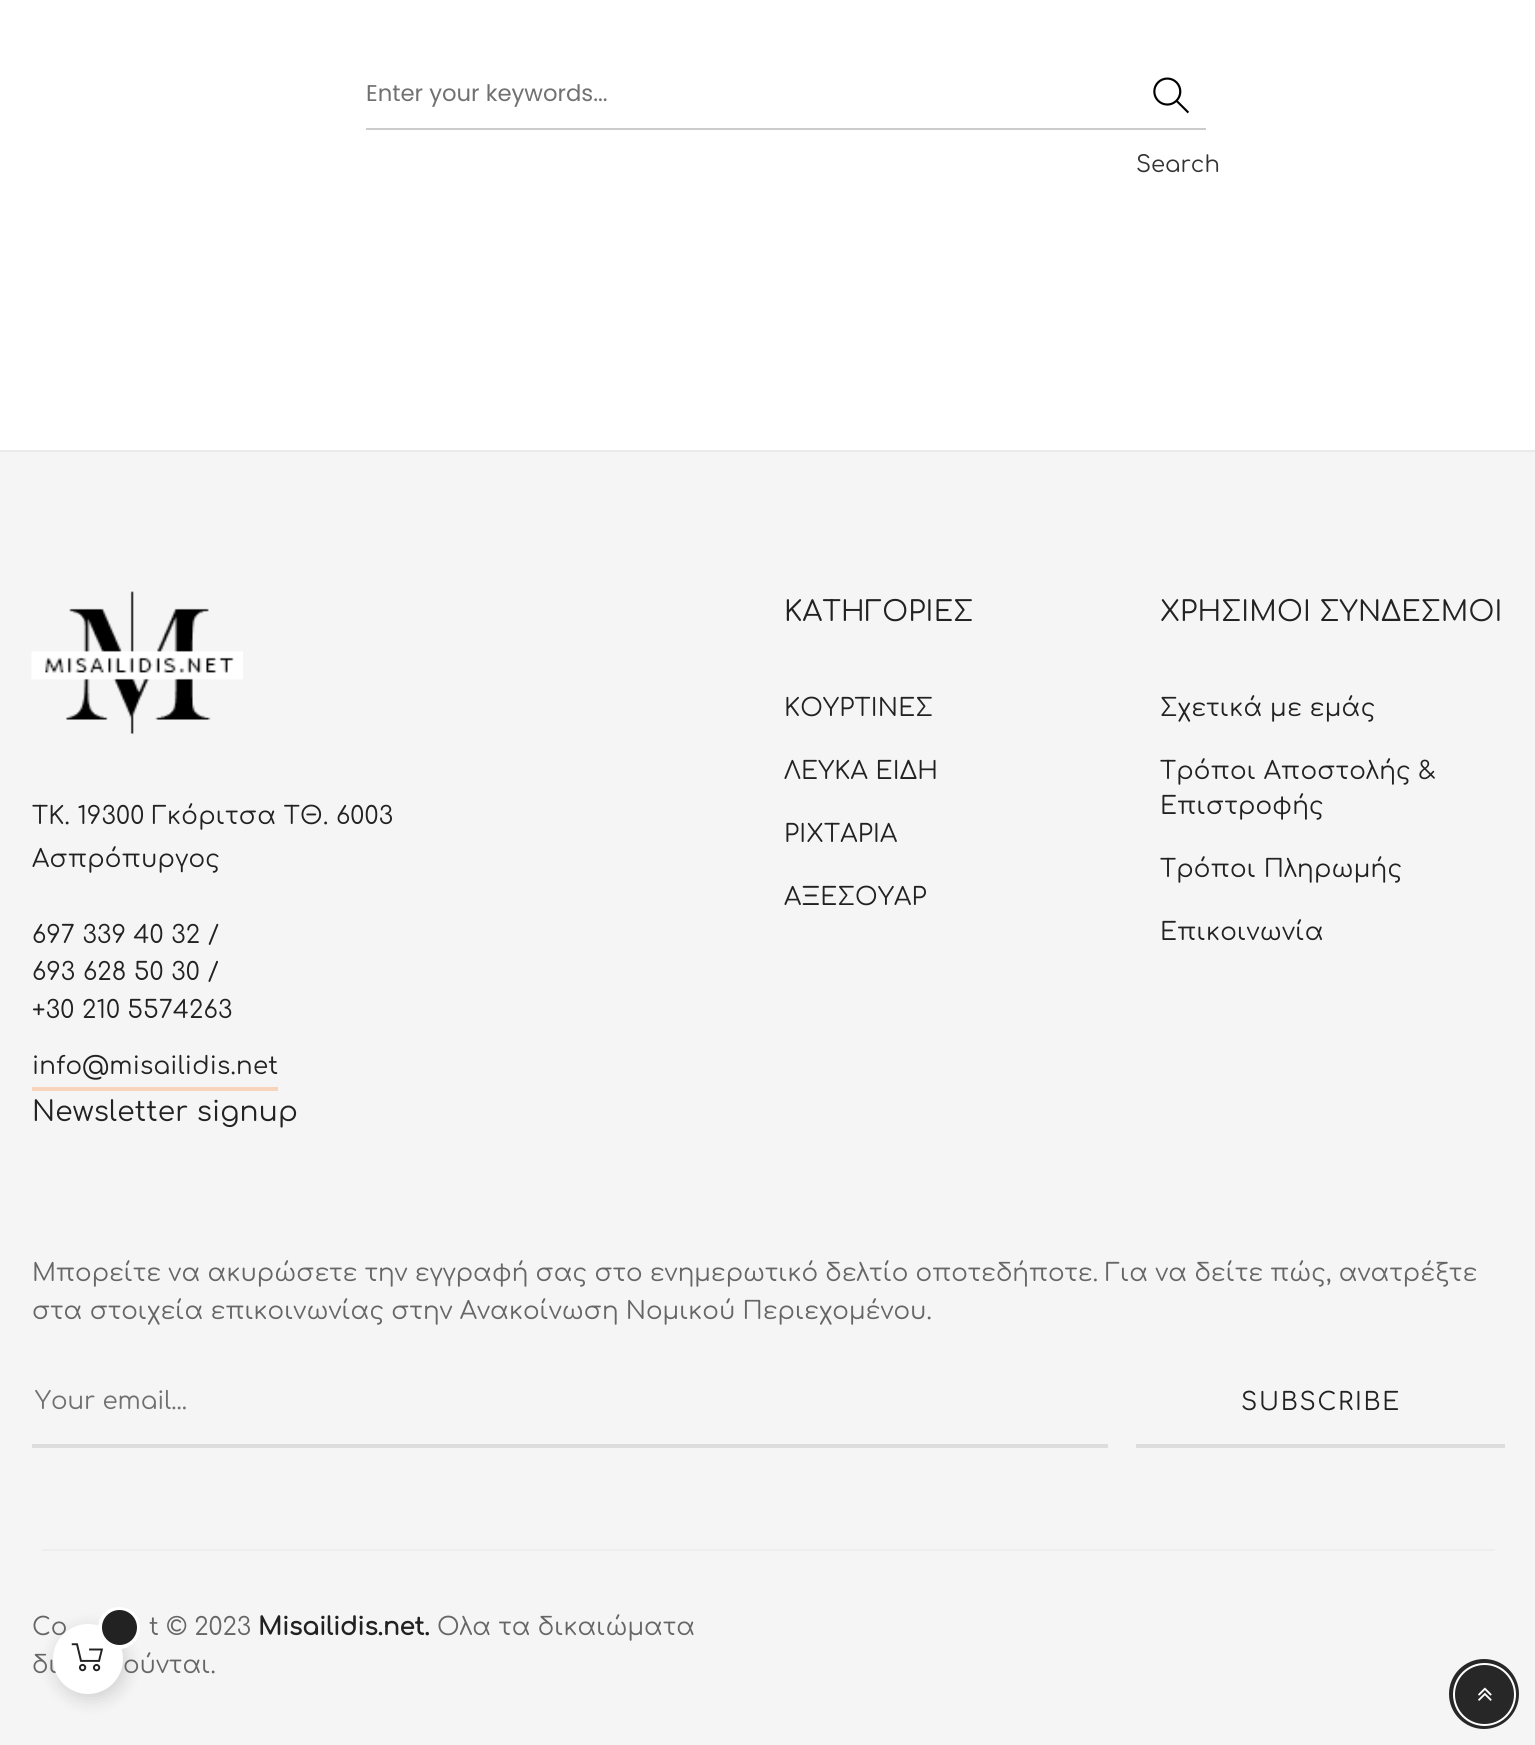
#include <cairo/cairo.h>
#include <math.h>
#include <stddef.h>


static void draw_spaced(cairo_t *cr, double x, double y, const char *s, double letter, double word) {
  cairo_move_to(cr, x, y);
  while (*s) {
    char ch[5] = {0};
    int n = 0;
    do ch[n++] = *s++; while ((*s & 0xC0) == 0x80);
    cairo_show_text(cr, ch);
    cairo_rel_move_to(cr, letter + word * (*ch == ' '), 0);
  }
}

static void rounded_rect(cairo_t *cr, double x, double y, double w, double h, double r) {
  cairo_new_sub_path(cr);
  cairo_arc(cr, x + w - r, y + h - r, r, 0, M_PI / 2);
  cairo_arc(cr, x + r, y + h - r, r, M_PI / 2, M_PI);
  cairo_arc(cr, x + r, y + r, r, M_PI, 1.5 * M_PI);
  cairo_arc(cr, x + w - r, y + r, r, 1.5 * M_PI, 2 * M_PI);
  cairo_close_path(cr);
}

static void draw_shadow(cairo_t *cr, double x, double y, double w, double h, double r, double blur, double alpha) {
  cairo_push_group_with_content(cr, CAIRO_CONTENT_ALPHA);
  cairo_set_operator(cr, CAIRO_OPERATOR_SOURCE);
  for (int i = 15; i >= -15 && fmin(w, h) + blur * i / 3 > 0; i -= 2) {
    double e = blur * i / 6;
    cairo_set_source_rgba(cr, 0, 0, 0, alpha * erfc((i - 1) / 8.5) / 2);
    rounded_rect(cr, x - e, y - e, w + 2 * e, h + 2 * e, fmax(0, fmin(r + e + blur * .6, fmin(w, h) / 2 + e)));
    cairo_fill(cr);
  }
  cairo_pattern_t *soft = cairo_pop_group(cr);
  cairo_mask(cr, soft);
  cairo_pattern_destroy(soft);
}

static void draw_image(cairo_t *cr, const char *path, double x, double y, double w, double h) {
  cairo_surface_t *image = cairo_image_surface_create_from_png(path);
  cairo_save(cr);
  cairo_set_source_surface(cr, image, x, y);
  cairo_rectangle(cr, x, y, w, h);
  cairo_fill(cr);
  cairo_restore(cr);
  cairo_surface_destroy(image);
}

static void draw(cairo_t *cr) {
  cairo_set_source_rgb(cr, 1, 1, 1);
  cairo_paint(cr);
  cairo_set_source_rgb(cr, 204 / 255.0, 204 / 255.0, 204 / 255.0);
  cairo_rectangle(cr, 366, 128, 840, 2);
  cairo_fill(cr);
  draw_image(cr, "images/1.png", 1153, 77, 36, 37);
  cairo_set_source_rgb(cr, 245 / 255.0, 245 / 255.0, 245 / 255.0);
  cairo_rectangle(cr, 0, 452, 1535, 1293);
  cairo_fill(cr);
  cairo_set_source_rgb(cr, 234 / 255.0, 234 / 255.0, 234 / 255.0);
  cairo_rectangle(cr, 0, 450, 1535, 2);
  cairo_fill(cr);
  draw_image(cr, "images/2.png", 31, 591, 212, 143);
  cairo_set_source_rgb(cr, 249 / 255.0, 212 / 255.0, 189 / 255.0);
  cairo_rectangle(cr, 32, 1087, 246, 4);
  cairo_fill(cr);
  cairo_set_source_rgb(cr, 221 / 255.0, 221 / 255.0, 221 / 255.0);
  cairo_rectangle(cr, 32, 1444, 1076, 4);
  cairo_fill(cr);
  cairo_rectangle(cr, 1136, 1444, 369, 4);
  cairo_fill(cr);
  cairo_set_source_rgb(cr, 238 / 255.0, 238 / 255.0, 238 / 255.0);
  cairo_rectangle(cr, 42, 1549, 1453, 2);
  cairo_fill(cr);
  cairo_set_source_rgb(cr, 39 / 255.0, 39 / 255.0, 39 / 255.0);
  cairo_arc(cr, 1484, 1694, 35, 0, 2 * M_PI);
  cairo_fill(cr);
  cairo_arc(cr, 1484.5, 1694.5, 30.5, 0, 2 * M_PI);
  cairo_set_source_rgb(cr, 1, 1, 1);
  cairo_stroke(cr);
  draw_image(cr, "images/3.png", 1478, 1687, 14, 14);
  cairo_set_source_rgb(cr, 0, 0, 0);
  draw_shadow(cr, 56, 1629, 70, 70, 35, 9, 0.15);
  cairo_select_font_face(cr, "Poppins", CAIRO_FONT_SLANT_NORMAL, CAIRO_FONT_WEIGHT_NORMAL);
  cairo_set_font_size(cr, 22.75);
  cairo_set_source_rgb(cr, 113 / 255.0, 113 / 255.0, 113 / 255.0);
  cairo_move_to(cr, 366, 101);
  cairo_show_text(cr, "Enter your keywords...");
  cairo_select_font_face(cr, "Comfortaa", CAIRO_FONT_SLANT_NORMAL, CAIRO_FONT_WEIGHT_NORMAL);
  cairo_set_source_rgb(cr, 51 / 255.0, 51 / 255.0, 51 / 255.0);
  cairo_move_to(cr, 1136, 172);
  cairo_show_text(cr, "Search");
  cairo_set_font_size(cr, 24.5);
  cairo_set_source_rgb(cr, 34 / 255.0, 34 / 255.0, 34 / 255.0);
  draw_spaced(cr, 32, 824, "ΤΚ. 19300 Γκόριτσα ΤΘ. 6003", 0.25, 0);
  draw_spaced(cr, 32, 867, "Ασπρόπυργος", 0.25, 0);
  draw_spaced(cr, 32, 943, "697 339 40 32 /", 0.25, 0);
  draw_spaced(cr, 32, 980, "693 628 50 30 /", 0.25, 0);
  draw_spaced(cr, 32, 1018, "+30 210 5574263", 0.25, 0);
  draw_spaced(cr, 32, 1074, "info@misailidis.net", 0.25, 0);
  cairo_set_font_size(cr, 28);
  draw_spaced(cr, 784, 621, "ΚΑΤΗΓΟΡΙΕΣ", 0.25, 0);
  cairo_set_font_size(cr, 24.5);
  draw_spaced(cr, 784, 716, "ΚΟΥΡΤΙΝΕΣ", 0.25, 0);
  draw_spaced(cr, 784, 779, "ΛΕΥΚA ΕIΔΗ", 0.25, 0);
  draw_spaced(cr, 784, 842, "ΡΙΧΤΑΡΙΑ", 0.25, 0);
  draw_spaced(cr, 784, 905, "ΑΞΕΣΟΥΑΡ", 0.25, 0);
  cairo_set_font_size(cr, 28);
  draw_spaced(cr, 1160, 621, "ΧΡΗΣΙΜΟΙ ΣΥΝΔΕΣΜΟΙ", 0.25, 0);
  cairo_set_font_size(cr, 24.5);
  draw_spaced(cr, 1160, 716, "Σχετικά με εμάς", 0.25, 0);
  draw_spaced(cr, 1160, 779, "Τρόποι Αποστολής &", 0.25, 0);
  draw_spaced(cr, 1160, 814, "Επιστροφής", 0.25, 0);
  draw_spaced(cr, 1160, 877, "Τρόποι Πληρωμής", 0.25, 0);
  draw_spaced(cr, 1160, 940, "Επικοινωνία", 0.25, 0);
  cairo_set_font_size(cr, 28);
  draw_spaced(cr, 32, 1121, "Newsletter signup", 0.25, 0);
  cairo_set_font_size(cr, 24.5);
  cairo_set_source_rgb(cr, 102 / 255.0, 102 / 255.0, 102 / 255.0);
  cairo_move_to(cr, 32, 1281);
  cairo_show_text(cr, "Μπορείτε να ακυρώσετε την εγγραφή σας στο ενημερωτικό δελτίο οποτεδήποτε. Για να δείτε πώς, ανατρέξτε");
  cairo_move_to(cr, 32, 1319);
  cairo_show_text(cr, "στα στοιχεία επικοινωνίας στην Ανακοίνωση Νομικού Περιεχομένου.");
  cairo_set_source_rgb(cr, 113 / 255.0, 113 / 255.0, 113 / 255.0);
  cairo_move_to(cr, 35, 1409);
  cairo_show_text(cr, "Your email...");
  cairo_set_source_rgb(cr, 34 / 255.0, 34 / 255.0, 34 / 255.0);
  draw_spaced(cr, 1241, 1410, "SUBSCRIBE", 1.75, 0);
  cairo_set_source_rgb(cr, 102 / 255.0, 102 / 255.0, 102 / 255.0);
  cairo_move_to(cr, 32, 1635);
  cairo_show_text(cr, "Co");
  cairo_move_to(cr, 149, 1635);
  cairo_show_text(cr, "t © 2023");
  cairo_select_font_face(cr, "Comfortaa", CAIRO_FONT_SLANT_NORMAL, CAIRO_FONT_WEIGHT_BOLD);
  cairo_set_source_rgb(cr, 34 / 255.0, 34 / 255.0, 34 / 255.0);
  cairo_move_to(cr, 258, 1635);
  cairo_show_text(cr, "Misailidis.net.");
  cairo_select_font_face(cr, "Comfortaa", CAIRO_FONT_SLANT_NORMAL, CAIRO_FONT_WEIGHT_NORMAL);
  cairo_set_source_rgb(cr, 102 / 255.0, 102 / 255.0, 102 / 255.0);
  cairo_move_to(cr, 437, 1635);
  cairo_show_text(cr, "Ολα τα δικαιώματα");
  cairo_move_to(cr, 32, 1673);
  cairo_show_text(cr, "δι");
  cairo_move_to(cr, 123, 1673);
  cairo_show_text(cr, "ούνται.");
  cairo_set_source_rgb(cr, 1, 1, 1);
  cairo_new_path(cr);
  cairo_arc(cr, 88, 1659, 35, 0, 2 * M_PI);
  cairo_fill(cr);
  draw_image(cr, "images/4.png", 71, 1643, 33, 29);
  cairo_arc(cr, 119, 1628, 19, 0, 2 * M_PI);
  cairo_set_line_width(cr, 4);
  cairo_stroke(cr);
  cairo_set_source_rgb(cr, 34 / 255.0, 34 / 255.0, 34 / 255.0);
  cairo_arc(cr, 119.5, 1627.5, 17.5, 0, 2 * M_PI);
  cairo_fill(cr);
}

int main(void) {
  cairo_surface_t *surface = cairo_image_surface_create(CAIRO_FORMAT_RGB24, 1535, 1745);
  cairo_t *cr = cairo_create(surface);
  cairo_font_options_t *options = cairo_font_options_create();
  cairo_font_options_set_hint_metrics(options, CAIRO_HINT_METRICS_OFF);
  cairo_font_options_set_hint_style(options, CAIRO_HINT_STYLE_NONE);
  cairo_set_font_options(cr, options);
  cairo_set_miter_limit(cr, 4);
  draw(cr);
  cairo_surface_write_to_png(surface, "out.png");
  cairo_font_options_destroy(options);
  cairo_destroy(cr);
  cairo_surface_destroy(surface);
  return 0;
}
